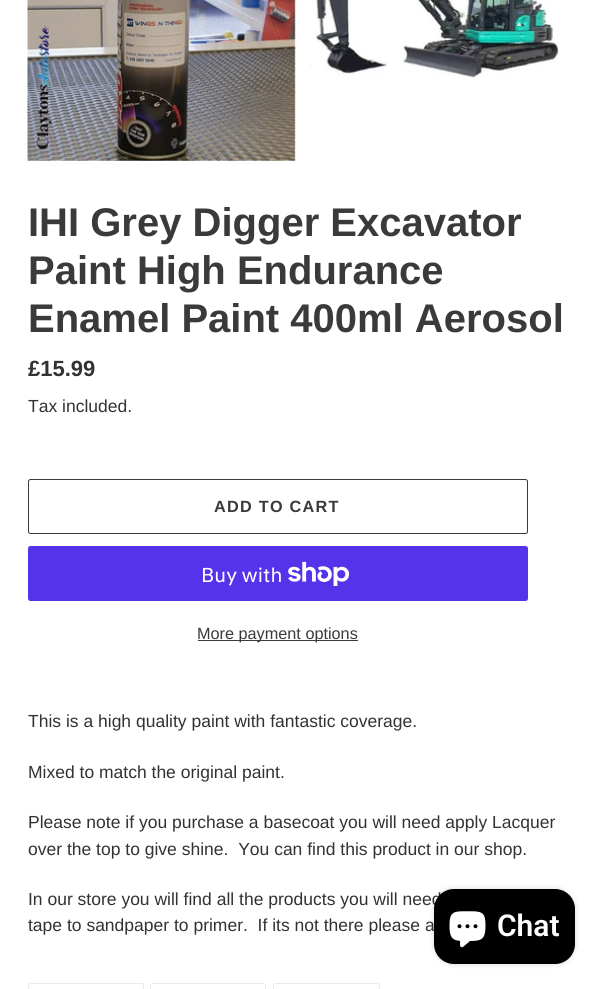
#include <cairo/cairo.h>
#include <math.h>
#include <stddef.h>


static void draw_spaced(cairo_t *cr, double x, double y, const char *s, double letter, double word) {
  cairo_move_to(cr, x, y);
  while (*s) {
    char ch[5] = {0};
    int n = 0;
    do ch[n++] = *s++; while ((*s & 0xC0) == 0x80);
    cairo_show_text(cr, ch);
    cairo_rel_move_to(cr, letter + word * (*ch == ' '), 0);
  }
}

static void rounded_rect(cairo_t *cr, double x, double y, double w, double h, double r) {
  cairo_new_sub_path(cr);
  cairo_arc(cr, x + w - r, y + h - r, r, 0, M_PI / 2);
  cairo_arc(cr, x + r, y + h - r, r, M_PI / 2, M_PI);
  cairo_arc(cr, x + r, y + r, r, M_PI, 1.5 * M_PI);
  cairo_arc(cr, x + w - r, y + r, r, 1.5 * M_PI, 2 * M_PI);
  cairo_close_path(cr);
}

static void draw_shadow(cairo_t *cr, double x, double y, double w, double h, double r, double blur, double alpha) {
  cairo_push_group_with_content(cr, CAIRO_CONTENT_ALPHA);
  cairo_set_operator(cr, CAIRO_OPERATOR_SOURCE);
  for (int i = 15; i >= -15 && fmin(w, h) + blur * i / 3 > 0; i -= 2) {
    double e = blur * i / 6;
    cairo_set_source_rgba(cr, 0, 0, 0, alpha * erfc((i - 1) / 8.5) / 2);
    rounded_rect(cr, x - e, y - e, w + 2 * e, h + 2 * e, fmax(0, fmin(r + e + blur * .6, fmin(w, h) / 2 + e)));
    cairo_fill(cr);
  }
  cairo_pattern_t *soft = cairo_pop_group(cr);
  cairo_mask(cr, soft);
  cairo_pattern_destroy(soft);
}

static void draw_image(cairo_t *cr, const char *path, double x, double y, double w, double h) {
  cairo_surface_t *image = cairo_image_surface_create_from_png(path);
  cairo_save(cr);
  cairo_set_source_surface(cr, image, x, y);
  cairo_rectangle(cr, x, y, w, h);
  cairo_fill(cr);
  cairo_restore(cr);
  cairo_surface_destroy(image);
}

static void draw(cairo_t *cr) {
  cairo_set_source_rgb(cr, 1, 1, 1);
  cairo_paint(cr);
  draw_image(cr, "images/1.png", 27, 0, 532, 161);
  rounded_rect(cr, 28.5, 479.5, 499, 54, 2);
  cairo_set_source_rgb(cr, 58 / 255.0, 58 / 255.0, 58 / 255.0);
  cairo_set_line_width(cr, 1);
  cairo_stroke(cr);
  cairo_set_source_rgb(cr, 84 / 255.0, 51 / 255.0, 235 / 255.0);
  rounded_rect(cr, 28, 546, 500, 55, 2.5);
  cairo_fill(cr);
  draw_image(cr, "images/2.png", 288, 561, 62, 25);
  cairo_set_source_rgb(cr, 58 / 255.0, 58 / 255.0, 58 / 255.0);
  cairo_rectangle(cr, 198, 640, 160, 1);
  cairo_fill(cr);
  rounded_rect(cr, 28.5, 983.5, 115, 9, 2);
  cairo_set_source_rgb(cr, 235 / 255.0, 235 / 255.0, 235 / 255.0);
  cairo_stroke(cr);
  rounded_rect(cr, 150.5, 983.5, 115, 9, 2);
  cairo_stroke(cr);
  rounded_rect(cr, 273.5, 983.5, 106, 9, 2);
  cairo_stroke(cr);
  cairo_set_source_rgb(cr, 0, 0, 0);
  draw_shadow(cr, 434, 889, 141, 75, 20, 3, 0.15);
  cairo_select_font_face(cr, "Liberation Sans", CAIRO_FONT_SLANT_NORMAL, CAIRO_FONT_WEIGHT_BOLD);
  cairo_set_font_size(cr, 40);
  cairo_set_source_rgb(cr, 58 / 255.0, 58 / 255.0, 58 / 255.0);
  cairo_move_to(cr, 28, 236);
  cairo_show_text(cr, "IHI Grey Digger Excavator");
  cairo_move_to(cr, 28, 284);
  cairo_show_text(cr, "Paint High Endurance");
  cairo_move_to(cr, 28, 332);
  cairo_show_text(cr, "Enamel Paint 400ml Aerosol");
  cairo_set_font_size(cr, 22);
  cairo_set_source_rgb(cr, 51 / 255.0, 50 / 255.0, 50 / 255.0);
  cairo_move_to(cr, 28, 376);
  cairo_show_text(cr, "£15.99");
  cairo_select_font_face(cr, "Liberation Sans", CAIRO_FONT_SLANT_NORMAL, CAIRO_FONT_WEIGHT_NORMAL);
  cairo_set_font_size(cr, 17.5);
  cairo_move_to(cr, 28, 412);
  cairo_show_text(cr, "Tax included.");
  cairo_select_font_face(cr, "Liberation Sans", CAIRO_FONT_SLANT_NORMAL, CAIRO_FONT_WEIGHT_BOLD);
  cairo_set_font_size(cr, 16.25);
  cairo_set_source_rgb(cr, 58 / 255.0, 58 / 255.0, 58 / 255.0);
  draw_spaced(cr, 214, 512, "ADD TO CART", 1.25, 0);
  cairo_select_font_face(cr, "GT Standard", CAIRO_FONT_SLANT_NORMAL, CAIRO_FONT_WEIGHT_NORMAL);
  cairo_set_font_size(cr, 20);
  cairo_set_source_rgb(cr, 1, 1, 1);
  cairo_move_to(cr, 201, 582);
  cairo_show_text(cr, "Buy with");
  cairo_select_font_face(cr, "Liberation Sans", CAIRO_FONT_SLANT_NORMAL, CAIRO_FONT_WEIGHT_NORMAL);
  cairo_set_font_size(cr, 16.25);
  cairo_set_source_rgb(cr, 58 / 255.0, 58 / 255.0, 58 / 255.0);
  cairo_move_to(cr, 197, 639);
  cairo_show_text(cr, "More payment options");
  cairo_set_font_size(cr, 17.5);
  cairo_set_source_rgb(cr, 51 / 255.0, 50 / 255.0, 50 / 255.0);
  cairo_move_to(cr, 28, 727);
  cairo_show_text(cr, "This is a high quality paint with fantastic coverage.");
  cairo_move_to(cr, 28, 778);
  cairo_show_text(cr, "Mixed to match the original paint.");
  cairo_move_to(cr, 28, 828);
  cairo_show_text(cr, "Please note if you purchase a basecoat you will need apply Lacquer");
  cairo_move_to(cr, 28, 855);
  cairo_show_text(cr, "over the top to give shine.  You can find this product in our shop.");
  cairo_move_to(cr, 28, 905);
  cairo_show_text(cr, "In our store you will find all the products you will need");
  cairo_move_to(cr, 28, 931);
  cairo_show_text(cr, "tape to sandpaper to primer.  If its not there please a");
  cairo_set_source_rgb(cr, 0, 0, 0);
  rounded_rect(cr, 434, 889, 141, 75, 20);
  cairo_fill(cr);
  draw_image(cr, "images/3.png", 449, 911, 37, 37);
  cairo_select_font_face(cr, "Roboto SemiBold", CAIRO_FONT_SLANT_NORMAL, CAIRO_FONT_WEIGHT_NORMAL);
  cairo_set_font_size(cr, 30);
  cairo_set_source_rgb(cr, 1, 1, 1);
  cairo_move_to(cr, 497, 936);
  cairo_show_text(cr, "Chat");
}

int main(void) {
  cairo_surface_t *surface = cairo_image_surface_create(CAIRO_FORMAT_RGB24, 602, 989);
  cairo_t *cr = cairo_create(surface);
  cairo_font_options_t *options = cairo_font_options_create();
  cairo_font_options_set_hint_metrics(options, CAIRO_HINT_METRICS_OFF);
  cairo_font_options_set_hint_style(options, CAIRO_HINT_STYLE_NONE);
  cairo_set_font_options(cr, options);
  cairo_set_miter_limit(cr, 4);
  draw(cr);
  cairo_surface_write_to_png(surface, "out.png");
  cairo_font_options_destroy(options);
  cairo_destroy(cr);
  cairo_surface_destroy(surface);
  return 0;
}
